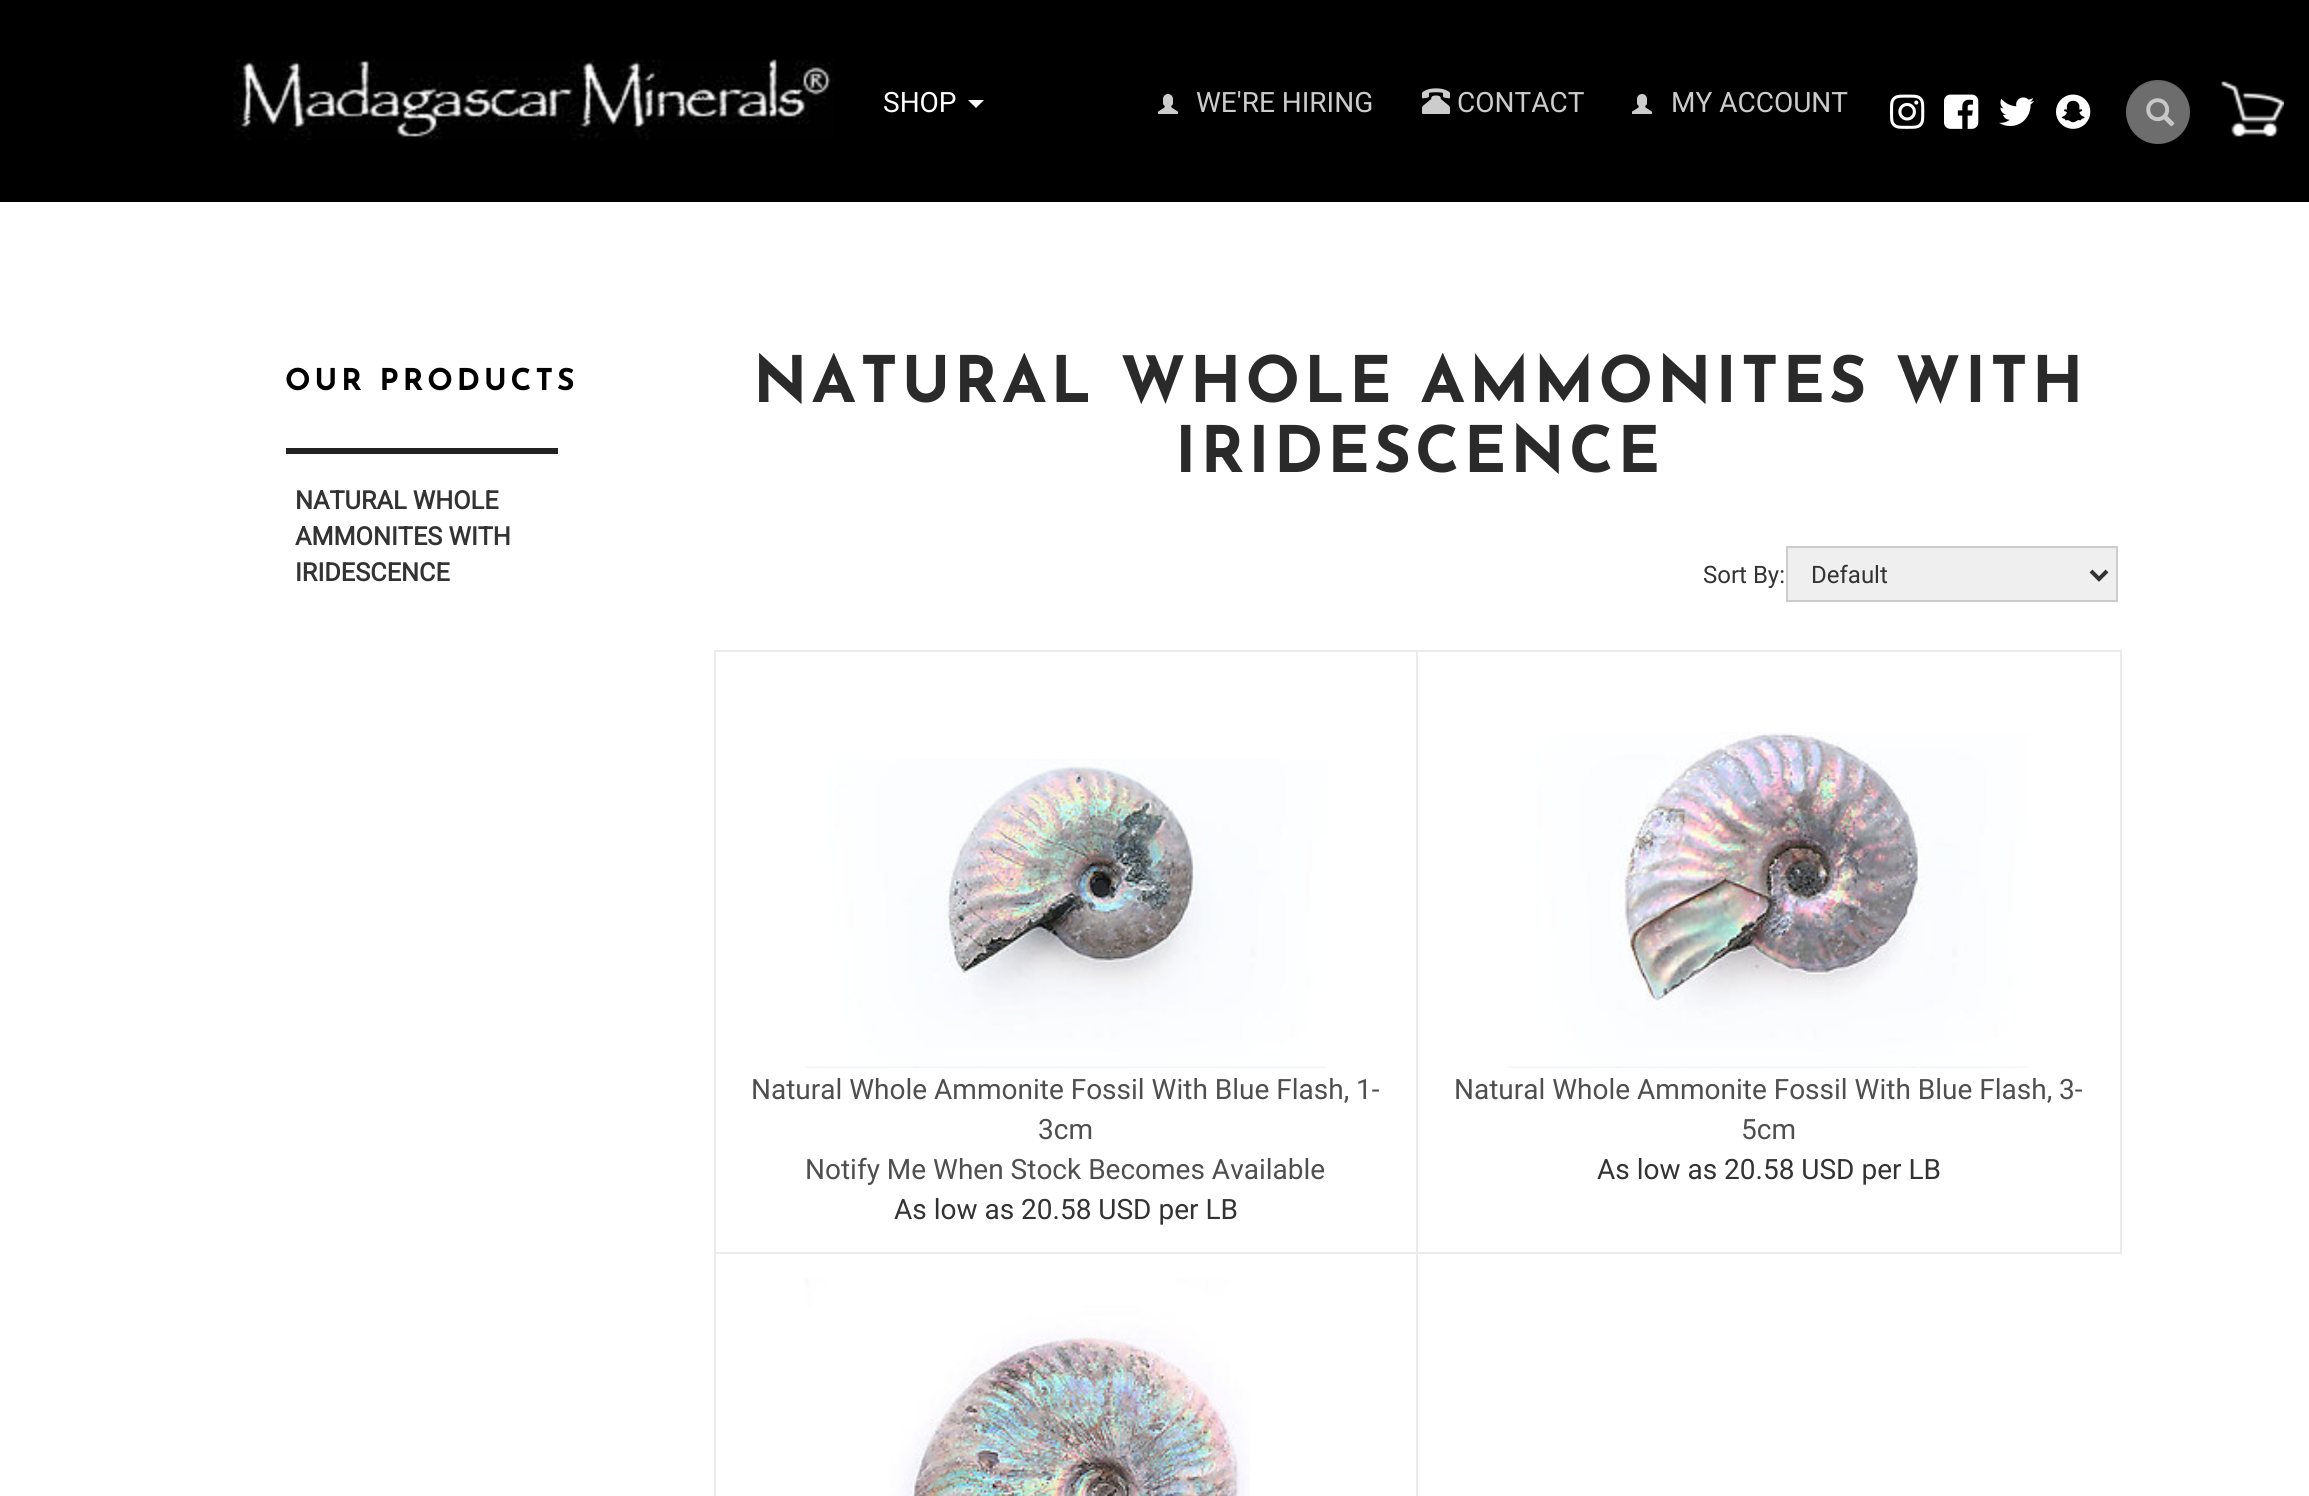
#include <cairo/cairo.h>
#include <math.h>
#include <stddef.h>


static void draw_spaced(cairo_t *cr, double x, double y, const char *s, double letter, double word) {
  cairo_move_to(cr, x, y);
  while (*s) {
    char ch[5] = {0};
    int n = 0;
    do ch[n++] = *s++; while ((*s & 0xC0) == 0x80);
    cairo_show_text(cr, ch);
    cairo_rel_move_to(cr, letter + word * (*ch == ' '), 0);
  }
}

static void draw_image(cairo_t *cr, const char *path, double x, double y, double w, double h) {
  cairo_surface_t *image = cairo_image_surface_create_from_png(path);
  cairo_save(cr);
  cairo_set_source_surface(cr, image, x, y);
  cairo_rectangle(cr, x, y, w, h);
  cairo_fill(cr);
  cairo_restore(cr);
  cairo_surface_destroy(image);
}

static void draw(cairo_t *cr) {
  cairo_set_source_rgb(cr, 1, 1, 1);
  cairo_paint(cr);
  cairo_set_source_rgb(cr, 0, 0, 0);
  cairo_rectangle(cr, 0, 0, 2309, 202);
  cairo_fill(cr);
  draw_image(cr, "images/1.png", 233, 59, 601, 81);
  cairo_set_source_rgb(cr, 1, 1, 1);
  cairo_new_path(cr);
  cairo_move_to(cr, 968, 100);
  cairo_line_to(cr, 984, 100);
  cairo_line_to(cr, 976, 108);
  cairo_close_path(cr);
  cairo_fill(cr);
  draw_image(cr, "images/2.png", 1158, 94, 20, 20);
  draw_image(cr, "images/3.png", 1422, 88, 28, 26);
  draw_image(cr, "images/2.png", 1632, 94, 20, 20);
  draw_image(cr, "images/4.png", 1890, 94, 35, 35);
  draw_image(cr, "images/5.png", 1944, 94, 35, 35);
  draw_image(cr, "images/6.png", 1999, 97, 35, 29);
  draw_image(cr, "images/7.png", 2056, 94, 35, 35);
  cairo_set_source_rgb(cr, 109 / 255.0, 109 / 255.0, 109 / 255.0);
  cairo_arc(cr, 2158, 112, 32, 0, 2 * M_PI);
  cairo_fill(cr);
  cairo_set_source_rgba(cr, 0, 0, 0, 0.07);
  cairo_new_path(cr);
  cairo_move_to(cr, 2158, 82);
  cairo_curve_to(cr, 2176, 82, 2189, 95, 2190, 113);
  cairo_curve_to(cr, 2190, 106, 2188, 100, 2185, 94);
  cairo_curve_to(cr, 2167, 68, 2125, 81, 2126, 113);
  cairo_curve_to(cr, 2127, 95, 2140, 82, 2158, 82);
  cairo_close_path(cr);
  cairo_fill(cr);
  draw_image(cr, "images/8.png", 2146, 98, 29, 29);
  draw_image(cr, "images/9.png", 2221, 81, 63, 56);
  cairo_set_source_rgb(cr, 34 / 255.0, 34 / 255.0, 34 / 255.0);
  cairo_rectangle(cr, 286, 448, 272, 6);
  cairo_fill(cr);
  cairo_set_source_rgb(cr, 239 / 255.0, 239 / 255.0, 239 / 255.0);
  cairo_rectangle(cr, 1787, 547, 330, 54);
  cairo_fill_preserve(cr);
  cairo_set_source_rgb(cr, 204 / 255.0, 204 / 255.0, 204 / 255.0);
  cairo_stroke(cr);
  cairo_new_path(cr);
  cairo_move_to(cr, 2091, 571);
  cairo_line_to(cr, 2099, 579);
  cairo_line_to(cr, 2107, 571);
  cairo_set_source_rgb(cr, 51 / 255.0, 51 / 255.0, 51 / 255.0);
  cairo_set_line_width(cr, 4);
  cairo_stroke(cr);
  cairo_rectangle(cr, 715, 651, 702, 602);
  cairo_set_source_rgb(cr, 235 / 255.0, 235 / 255.0, 235 / 255.0);
  cairo_set_line_width(cr, 2);
  cairo_stroke(cr);
  draw_image(cr, "images/10.png", 805, 759, 522, 309);
  cairo_rectangle(cr, 1417, 651, 704, 602);
  cairo_stroke(cr);
  draw_image(cr, "images/11.png", 1507, 732, 522, 336);
  cairo_rectangle(cr, 715, 1253, 702, 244);
  cairo_stroke(cr);
  draw_image(cr, "images/12.png", 805, 1278, 445, 218);
  cairo_select_font_face(cr, "Roboto", CAIRO_FONT_SLANT_NORMAL, CAIRO_FONT_WEIGHT_NORMAL);
  cairo_set_font_size(cr, 28);
  cairo_set_source_rgb(cr, 1, 1, 1);
  cairo_move_to(cr, 883, 112);
  cairo_show_text(cr, "SHOP");
  cairo_set_source_rgb(cr, 204 / 255.0, 204 / 255.0, 204 / 255.0);
  cairo_move_to(cr, 1196, 112);
  cairo_show_text(cr, "WE'RE HIRING");
  cairo_move_to(cr, 1457, 112);
  cairo_show_text(cr, "CONTACT");
  cairo_move_to(cr, 1671, 112);
  cairo_show_text(cr, "MY ACCOUNT");
  cairo_select_font_face(cr, "Josefin Sans Thin", CAIRO_FONT_SLANT_NORMAL, CAIRO_FONT_WEIGHT_NORMAL);
  cairo_set_font_size(cr, 30);
  cairo_set_source_rgb(cr, 0, 0, 0);
  draw_spaced(cr, 285, 390, "OUR PRODUCTS", 4, 0);
  cairo_select_font_face(cr, "Roboto", CAIRO_FONT_SLANT_NORMAL, CAIRO_FONT_WEIGHT_BOLD);
  cairo_set_font_size(cr, 25.25);
  cairo_set_source_rgb(cr, 51 / 255.0, 51 / 255.0, 51 / 255.0);
  cairo_move_to(cr, 295, 509);
  cairo_show_text(cr, "NATURAL WHOLE");
  cairo_move_to(cr, 295, 545);
  cairo_show_text(cr, "AMMONITES WITH");
  cairo_move_to(cr, 295, 581);
  cairo_show_text(cr, "IRIDESCENCE");
  cairo_select_font_face(cr, "Josefin Sans Thin", CAIRO_FONT_SLANT_NORMAL, CAIRO_FONT_WEIGHT_NORMAL);
  cairo_set_font_size(cr, 64);
  cairo_set_source_rgb(cr, 42 / 255.0, 42 / 255.0, 42 / 255.0);
  draw_spaced(cr, 753, 402, "NATURAL WHOLE AMMONITES WITH", 4, 0);
  draw_spaced(cr, 1175, 472, "IRIDESCENCE", 4, 0);
  cairo_select_font_face(cr, "Roboto", CAIRO_FONT_SLANT_NORMAL, CAIRO_FONT_WEIGHT_NORMAL);
  cairo_set_font_size(cr, 24);
  cairo_set_source_rgb(cr, 51 / 255.0, 51 / 255.0, 51 / 255.0);
  cairo_move_to(cr, 1703, 583);
  cairo_show_text(cr, "Sort By:");
  cairo_move_to(cr, 1811, 583);
  cairo_show_text(cr, "Default");
  cairo_set_font_size(cr, 28);
  cairo_set_source_rgb(cr, 79 / 255.0, 79 / 255.0, 79 / 255.0);
  cairo_move_to(cr, 751, 1099);
  cairo_show_text(cr, "Natural Whole Ammonite Fossil With Blue Flash, 1-");
  cairo_move_to(cr, 1038, 1139);
  cairo_show_text(cr, "3cm");
  cairo_move_to(cr, 805, 1179);
  cairo_show_text(cr, "Notify Me When Stock Becomes Available");
  cairo_set_source_rgb(cr, 51 / 255.0, 51 / 255.0, 51 / 255.0);
  cairo_move_to(cr, 894, 1219);
  cairo_show_text(cr, "As low as 20.58 USD per LB");
  cairo_set_source_rgb(cr, 79 / 255.0, 79 / 255.0, 79 / 255.0);
  cairo_move_to(cr, 1454, 1099);
  cairo_show_text(cr, "Natural Whole Ammonite Fossil With Blue Flash, 3-");
  cairo_move_to(cr, 1741, 1139);
  cairo_show_text(cr, "5cm");
  cairo_set_source_rgb(cr, 51 / 255.0, 51 / 255.0, 51 / 255.0);
  cairo_move_to(cr, 1597, 1179);
  cairo_show_text(cr, "As low as 20.58 USD per LB");
}

int main(void) {
  cairo_surface_t *surface = cairo_image_surface_create(CAIRO_FORMAT_RGB24, 2309, 1496);
  cairo_t *cr = cairo_create(surface);
  cairo_font_options_t *options = cairo_font_options_create();
  cairo_font_options_set_hint_metrics(options, CAIRO_HINT_METRICS_OFF);
  cairo_font_options_set_hint_style(options, CAIRO_HINT_STYLE_NONE);
  cairo_set_font_options(cr, options);
  cairo_set_miter_limit(cr, 4);
  draw(cr);
  cairo_surface_write_to_png(surface, "out.png");
  cairo_font_options_destroy(options);
  cairo_destroy(cr);
  cairo_surface_destroy(surface);
  return 0;
}
